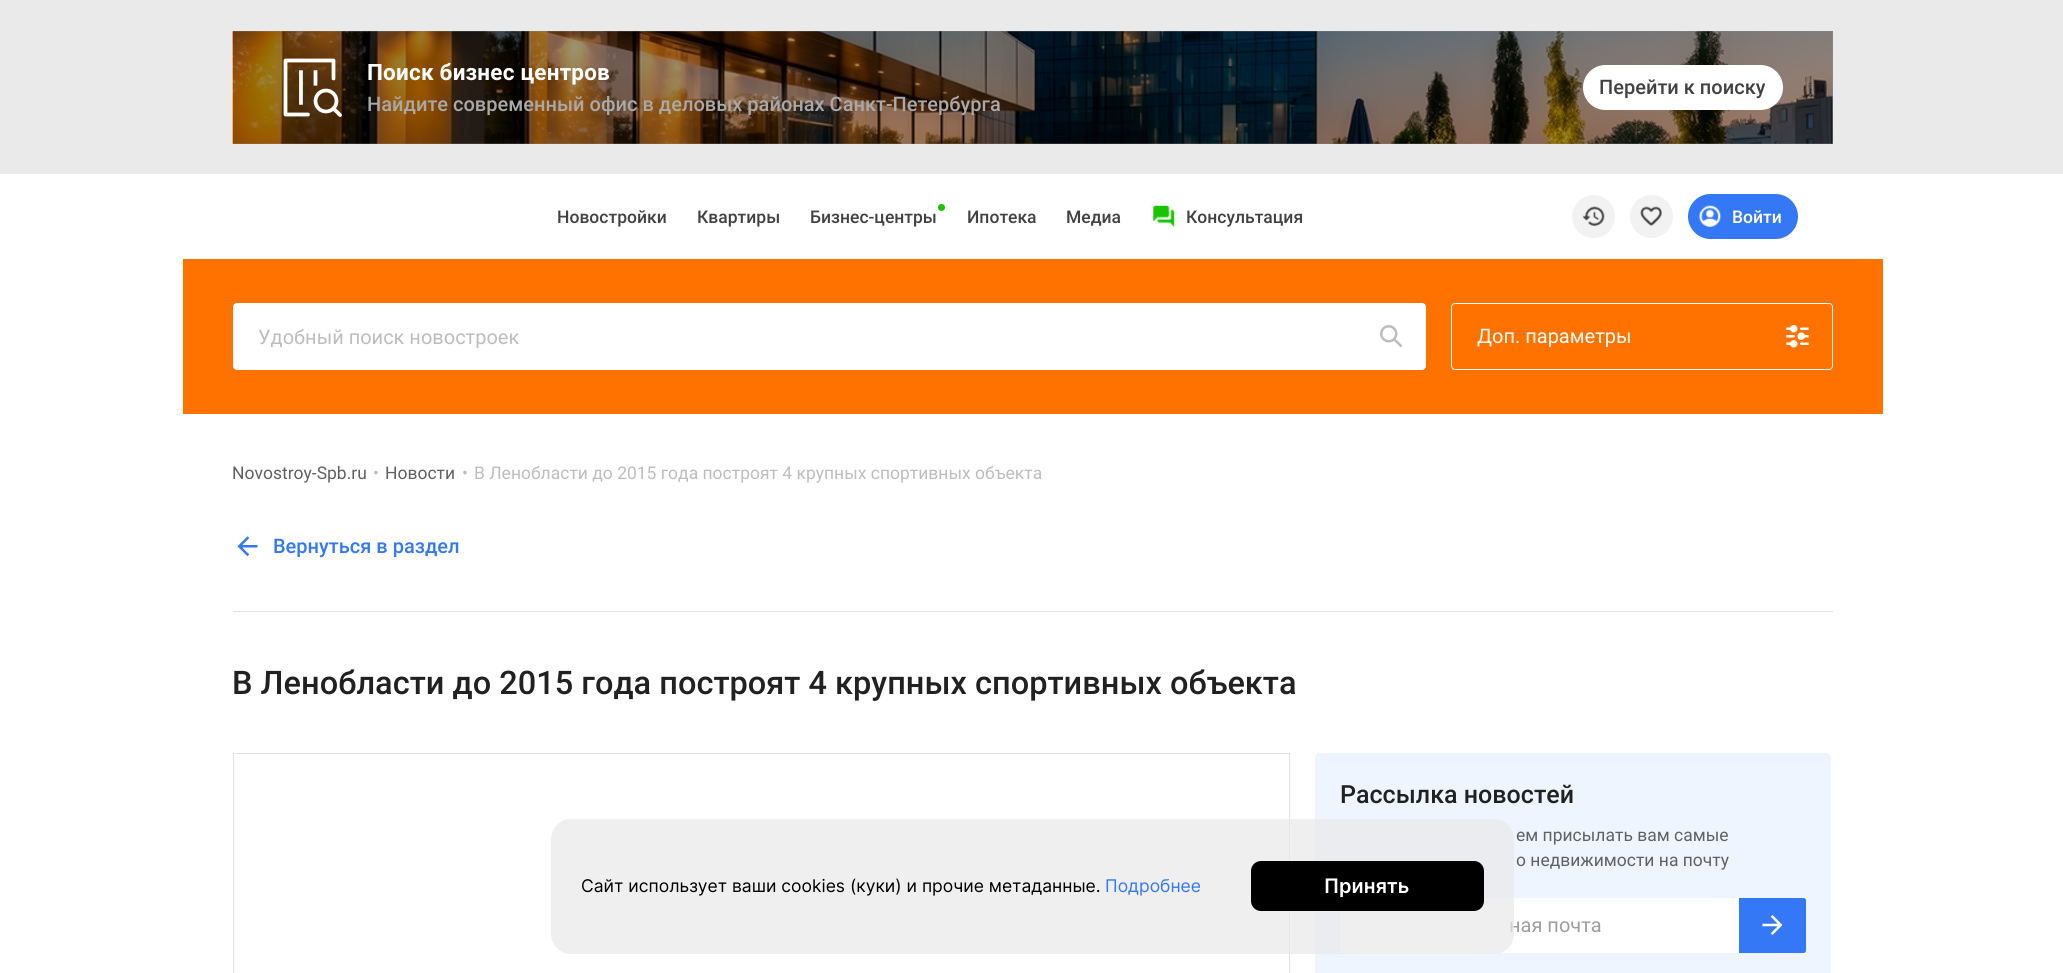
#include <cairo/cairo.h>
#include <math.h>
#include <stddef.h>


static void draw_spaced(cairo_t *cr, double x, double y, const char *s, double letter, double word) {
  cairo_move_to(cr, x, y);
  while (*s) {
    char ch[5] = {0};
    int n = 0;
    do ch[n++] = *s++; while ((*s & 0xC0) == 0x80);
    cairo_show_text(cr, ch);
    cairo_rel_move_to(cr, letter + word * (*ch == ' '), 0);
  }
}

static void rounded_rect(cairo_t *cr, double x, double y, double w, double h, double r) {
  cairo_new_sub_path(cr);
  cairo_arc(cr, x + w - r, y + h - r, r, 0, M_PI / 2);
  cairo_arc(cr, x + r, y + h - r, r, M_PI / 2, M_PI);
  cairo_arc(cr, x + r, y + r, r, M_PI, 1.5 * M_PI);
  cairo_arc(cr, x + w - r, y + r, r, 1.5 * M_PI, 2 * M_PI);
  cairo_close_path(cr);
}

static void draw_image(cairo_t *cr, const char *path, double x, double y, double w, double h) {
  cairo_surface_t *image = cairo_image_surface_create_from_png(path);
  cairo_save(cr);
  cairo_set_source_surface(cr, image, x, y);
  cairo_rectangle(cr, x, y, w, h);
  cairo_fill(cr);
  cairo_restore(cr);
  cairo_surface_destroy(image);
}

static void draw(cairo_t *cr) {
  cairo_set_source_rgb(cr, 1, 1, 1);
  cairo_paint(cr);
  cairo_set_source_rgb(cr, 234 / 255.0, 234 / 255.0, 234 / 255.0);
  cairo_rectangle(cr, 0, 0, 2063, 174);
  cairo_fill(cr);
  cairo_set_source_rgb(cr, 140 / 255.0, 140 / 255.0, 140 / 255.0);
  cairo_rectangle(cr, 233, 31, 1600, 113);
  cairo_fill(cr);
  draw_image(cr, "images/1.png", 232, 31, 1601, 113);
  draw_image(cr, "images/2.png", 283, 58, 59, 59);
  cairo_set_source_rgb(cr, 1, 1, 1);
  rounded_rect(cr, 1583, 65, 200, 45, 22.5);
  cairo_fill(cr);
  cairo_set_source_rgb(cr, 23 / 255.0, 197 / 255.0, 0);
  cairo_arc(cr, 941.5, 207.5, 3.5, 0, 2 * M_PI);
  cairo_fill(cr);
  draw_image(cr, "images/3.png", 1153, 205, 22, 22);
  cairo_set_source_rgb(cr, 242 / 255.0, 242 / 255.0, 242 / 255.0);
  cairo_arc(cr, 1593.5, 216.5, 22, 0, 2 * M_PI);
  cairo_fill_preserve(cr);
  cairo_set_source_rgb(cr, 1, 1, 1);
  cairo_set_line_width(cr, 1);
  cairo_stroke(cr);
  draw_image(cr, "images/4.png", 1582, 206, 23, 20);
  cairo_set_source_rgb(cr, 242 / 255.0, 242 / 255.0, 242 / 255.0);
  cairo_arc(cr, 1651.5, 216.5, 22, 0, 2 * M_PI);
  cairo_fill_preserve(cr);
  cairo_set_source_rgb(cr, 1, 1, 1);
  cairo_stroke(cr);
  draw_image(cr, "images/5.png", 1640, 206, 22, 20);
  cairo_set_source_rgb(cr, 52 / 255.0, 120 / 255.0, 246 / 255.0);
  rounded_rect(cr, 1688, 194, 110, 45, 22.5);
  cairo_fill(cr);
  draw_image(cr, "images/6.png", 1699, 205, 23, 22);
  cairo_set_source_rgb(cr, 1, 114 / 255.0, 0);
  cairo_rectangle(cr, 183, 259, 1700, 155);
  cairo_fill(cr);
  cairo_set_source_rgb(cr, 1, 1, 1);
  rounded_rect(cr, 233.5, 303.5, 1192, 66, 3.5);
  cairo_fill_preserve(cr);
  cairo_stroke(cr);
  draw_image(cr, "images/7.png", 1380, 325, 23, 23);
  rounded_rect(cr, 1451.5, 303.5, 381, 66, 3.5);
  cairo_stroke(cr);
  draw_image(cr, "images/8.png", 1786, 325, 23, 23);
  draw_image(cr, "images/9.png", 237, 536, 21, 21);
  cairo_set_source_rgb(cr, 224 / 255.0, 224 / 255.0, 224 / 255.0);
  cairo_rectangle(cr, 233, 611, 1600, 1);
  cairo_fill(cr);
  cairo_rectangle(cr, 233, 753, 1057, 1);
  cairo_fill(cr);
  cairo_rectangle(cr, 1289, 753, 1, 220);
  cairo_fill(cr);
  cairo_rectangle(cr, 233, 753, 1, 220);
  cairo_fill(cr);
  cairo_set_source_rgb(cr, 238 / 255.0, 245 / 255.0, 1);
  rounded_rect(cr, 1315, 753, 516, 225, 5);
  cairo_fill(cr);
  cairo_set_source_rgb(cr, 1, 1, 1);
  cairo_new_path(cr);
  cairo_move_to(cr, 1342.5, 898);
  cairo_line_to(cr, 1739, 898);
  cairo_line_to(cr, 1739, 953);
  cairo_line_to(cr, 1342.5, 953);
  cairo_curve_to(cr, 1341, 953, 1340, 952, 1340, 950.5);
  cairo_line_to(cr, 1340, 900.5);
  cairo_curve_to(cr, 1340, 899, 1341, 898, 1342.5, 898);
  cairo_close_path(cr);
  cairo_fill(cr);
  cairo_set_source_rgb(cr, 52 / 255.0, 120 / 255.0, 246 / 255.0);
  cairo_new_path(cr);
  cairo_move_to(cr, 1739, 898);
  cairo_line_to(cr, 1803.5, 898);
  cairo_curve_to(cr, 1805, 898, 1806, 899, 1806, 900.5);
  cairo_line_to(cr, 1806, 950.5);
  cairo_curve_to(cr, 1806, 952, 1805, 953, 1803.5, 953);
  cairo_line_to(cr, 1739, 953);
  cairo_close_path(cr);
  cairo_fill(cr);
  draw_image(cr, "images/10.png", 1762, 915, 21, 20);
  cairo_select_font_face(cr, "Roboto", CAIRO_FONT_SLANT_NORMAL, CAIRO_FONT_WEIGHT_BOLD);
  cairo_set_font_size(cr, 22.5);
  cairo_set_source_rgb(cr, 1, 1, 1);
  draw_spaced(cr, 367, 80, "Поиск бизнес центров", 0.2, 0);
  cairo_select_font_face(cr, "Roboto Medium", CAIRO_FONT_SLANT_NORMAL, CAIRO_FONT_WEIGHT_NORMAL);
  cairo_set_font_size(cr, 20);
  cairo_set_source_rgb(cr, 169 / 255.0, 169 / 255.0, 169 / 255.0);
  cairo_move_to(cr, 367, 111);
  cairo_show_text(cr, "Найдите современный офис в деловых районах Санкт-Петербурга");
  cairo_set_source_rgb(cr, 66 / 255.0, 66 / 255.0, 66 / 255.0);
  cairo_move_to(cr, 1599, 94);
  cairo_show_text(cr, "Перейти к поиску");
  cairo_set_font_size(cr, 17.5);
  cairo_move_to(cr, 557, 223);
  cairo_show_text(cr, "Новостройки");
  cairo_move_to(cr, 697, 223);
  cairo_show_text(cr, "Квартиры");
  cairo_move_to(cr, 810, 223);
  cairo_show_text(cr, "Бизнес-центры");
  cairo_move_to(cr, 967, 223);
  cairo_show_text(cr, "Ипотека");
  cairo_move_to(cr, 1066, 223);
  cairo_show_text(cr, "Медиа");
  cairo_move_to(cr, 1186, 223);
  cairo_show_text(cr, "Консультация");
  cairo_set_source_rgb(cr, 1, 1, 1);
  cairo_move_to(cr, 1732, 223);
  cairo_show_text(cr, "Войти");
  cairo_select_font_face(cr, "Roboto", CAIRO_FONT_SLANT_NORMAL, CAIRO_FONT_WEIGHT_NORMAL);
  cairo_set_font_size(cr, 20);
  cairo_set_source_rgb(cr, 189 / 255.0, 189 / 255.0, 189 / 255.0);
  cairo_move_to(cr, 258, 344);
  cairo_show_text(cr, "Удобный поиск новостроек");
  cairo_set_source_rgb(cr, 1, 1, 1);
  cairo_move_to(cr, 1477, 343);
  cairo_show_text(cr, "Доп. параметры");
  cairo_set_font_size(cr, 17.5);
  cairo_set_source_rgb(cr, 97 / 255.0, 97 / 255.0, 97 / 255.0);
  cairo_move_to(cr, 232, 479);
  cairo_show_text(cr, "Novostroy-Spb.ru");
  cairo_set_source_rgb(cr, 189 / 255.0, 189 / 255.0, 189 / 255.0);
  cairo_move_to(cr, 373, 479);
  cairo_show_text(cr, "•");
  cairo_set_source_rgb(cr, 97 / 255.0, 97 / 255.0, 97 / 255.0);
  cairo_move_to(cr, 385, 479);
  cairo_show_text(cr, "Новости");
  cairo_set_source_rgb(cr, 189 / 255.0, 189 / 255.0, 189 / 255.0);
  cairo_move_to(cr, 462, 479);
  cairo_show_text(cr, "•");
  cairo_move_to(cr, 474, 479);
  cairo_show_text(cr, "В Ленобласти до 2015 года построят 4 крупных спортивных объекта");
  cairo_select_font_face(cr, "Roboto Medium", CAIRO_FONT_SLANT_NORMAL, CAIRO_FONT_WEIGHT_NORMAL);
  cairo_set_font_size(cr, 20);
  cairo_set_source_rgb(cr, 52 / 255.0, 120 / 255.0, 246 / 255.0);
  cairo_move_to(cr, 273, 553);
  cairo_show_text(cr, "Вернуться в раздел");
  cairo_set_font_size(cr, 32.5);
  cairo_set_source_rgb(cr, 33 / 255.0, 33 / 255.0, 33 / 255.0);
  cairo_move_to(cr, 232, 694);
  cairo_show_text(cr, "В Ленобласти до 2015 года построят 4 крупных спортивных объекта");
  cairo_set_font_size(cr, 25);
  cairo_move_to(cr, 1340, 803);
  cairo_show_text(cr, "Рассылка новостей");
  cairo_select_font_face(cr, "Roboto", CAIRO_FONT_SLANT_NORMAL, CAIRO_FONT_WEIGHT_NORMAL);
  cairo_set_font_size(cr, 17.5);
  cairo_set_source_rgb(cr, 97 / 255.0, 97 / 255.0, 97 / 255.0);
  cairo_move_to(cr, 1516, 841);
  cairo_show_text(cr, "ем присылать вам самые");
  cairo_move_to(cr, 1516, 866);
  cairo_show_text(cr, "о недвижимости на почту");
  cairo_set_font_size(cr, 20);
  cairo_set_source_rgb(cr, 158 / 255.0, 158 / 255.0, 158 / 255.0);
  cairo_move_to(cr, 1509, 932);
  cairo_show_text(cr, "ная почта");
  cairo_set_source_rgba(cr, 232 / 255.0, 232 / 255.0, 232 / 255.0, 0.7);
  rounded_rect(cr, 551, 819, 963, 135, 20);
  cairo_fill(cr);
  cairo_select_font_face(cr, "Inter", CAIRO_FONT_SLANT_NORMAL, CAIRO_FONT_WEIGHT_NORMAL);
  cairo_set_font_size(cr, 17.5);
  cairo_set_source_rgb(cr, 0, 0, 0);
  cairo_move_to(cr, 581, 892);
  cairo_show_text(cr, "Сайт использует ваши cookies (куки) и прочие метаданные.");
  cairo_set_source_rgb(cr, 52 / 255.0, 120 / 255.0, 246 / 255.0);
  cairo_move_to(cr, 1105, 892);
  cairo_show_text(cr, "Подробнее");
  cairo_set_source_rgb(cr, 0, 0, 0);
  rounded_rect(cr, 1251, 861, 233, 50, 10);
  cairo_fill(cr);
  cairo_select_font_face(cr, "Inter SemiBold", CAIRO_FONT_SLANT_NORMAL, CAIRO_FONT_WEIGHT_NORMAL);
  cairo_set_font_size(cr, 20);
  cairo_set_source_rgb(cr, 1, 1, 1);
  cairo_move_to(cr, 1324, 893);
  cairo_show_text(cr, "Принять");
}

int main(void) {
  cairo_surface_t *surface = cairo_image_surface_create(CAIRO_FORMAT_RGB24, 2063, 973);
  cairo_t *cr = cairo_create(surface);
  cairo_font_options_t *options = cairo_font_options_create();
  cairo_font_options_set_hint_metrics(options, CAIRO_HINT_METRICS_OFF);
  cairo_font_options_set_hint_style(options, CAIRO_HINT_STYLE_NONE);
  cairo_set_font_options(cr, options);
  cairo_set_miter_limit(cr, 4);
  draw(cr);
  cairo_surface_write_to_png(surface, "out.png");
  cairo_font_options_destroy(options);
  cairo_destroy(cr);
  cairo_surface_destroy(surface);
  return 0;
}
